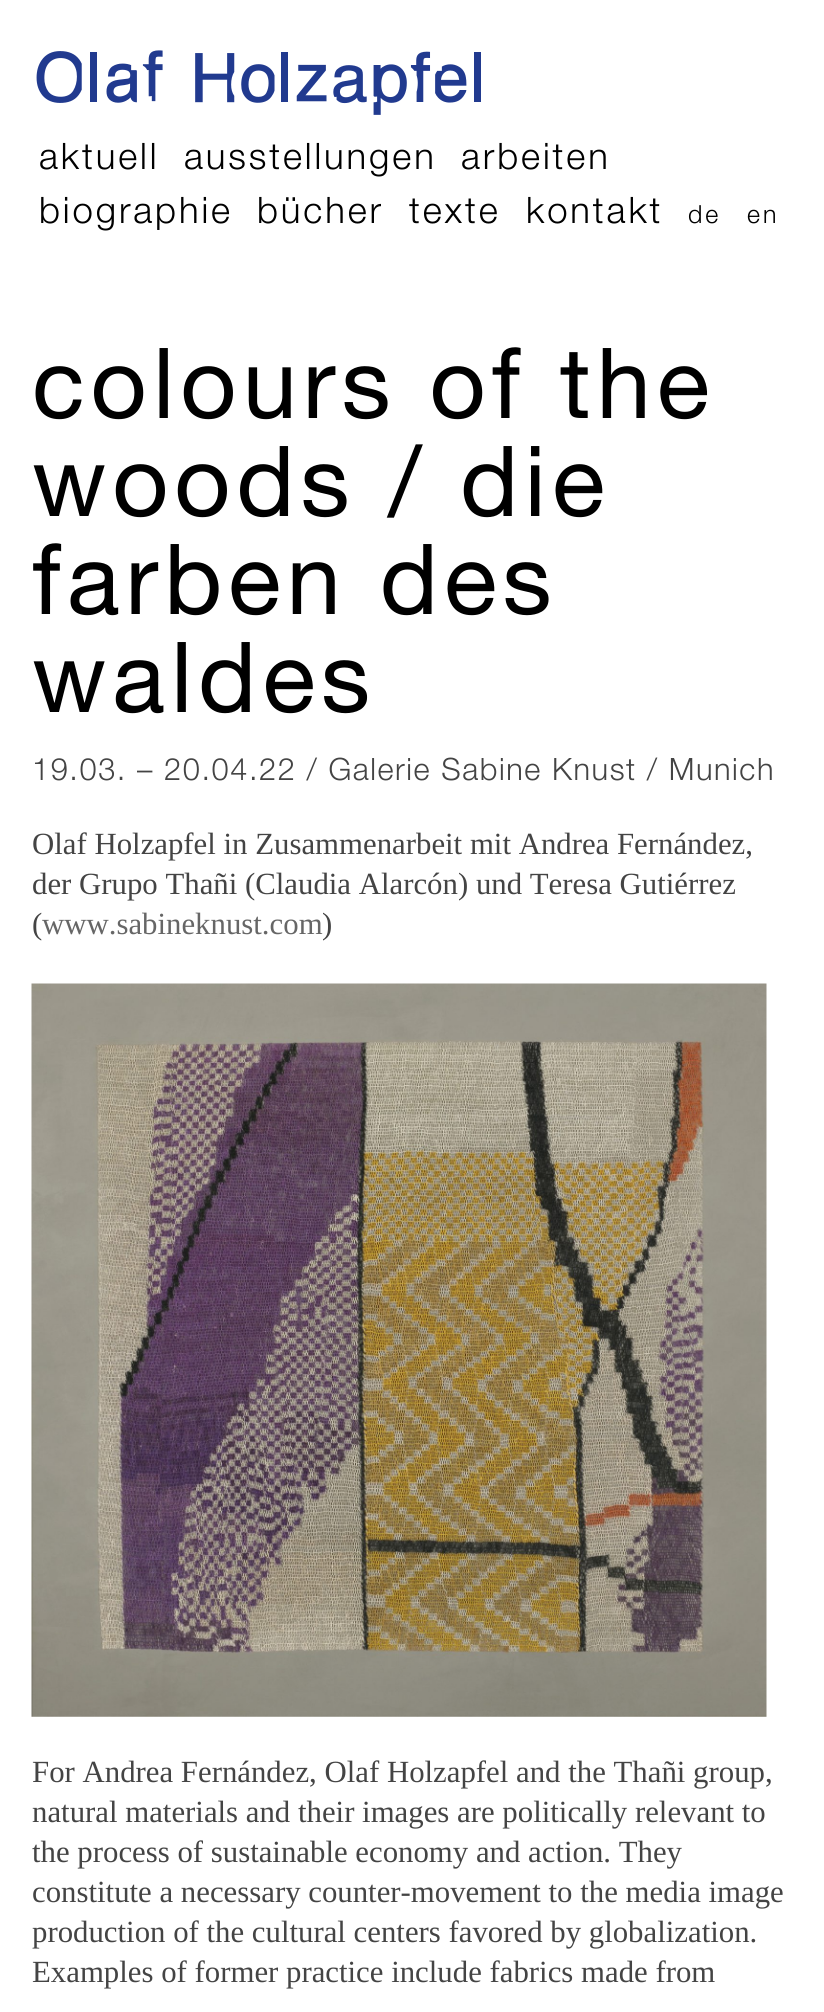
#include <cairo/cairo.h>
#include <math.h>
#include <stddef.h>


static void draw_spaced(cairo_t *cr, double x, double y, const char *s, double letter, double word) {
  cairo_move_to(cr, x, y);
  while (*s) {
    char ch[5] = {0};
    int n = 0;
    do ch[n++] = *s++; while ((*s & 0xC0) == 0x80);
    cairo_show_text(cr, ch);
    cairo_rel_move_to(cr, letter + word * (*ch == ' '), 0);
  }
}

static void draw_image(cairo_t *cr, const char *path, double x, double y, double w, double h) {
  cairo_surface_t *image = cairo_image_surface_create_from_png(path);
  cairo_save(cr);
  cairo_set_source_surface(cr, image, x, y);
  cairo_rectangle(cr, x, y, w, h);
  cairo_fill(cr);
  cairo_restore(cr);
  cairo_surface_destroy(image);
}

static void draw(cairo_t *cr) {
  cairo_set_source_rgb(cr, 1, 1, 1);
  cairo_paint(cr);
  draw_image(cr, "images/1.png", 36, 50, 445, 65);
  draw_image(cr, "images/2.png", 31, 983, 736, 734);
  cairo_select_font_face(cr, "Helvetica Neue Light", CAIRO_FONT_SLANT_NORMAL, CAIRO_FONT_WEIGHT_NORMAL);
  cairo_set_font_size(cr, 36.5);
  cairo_set_source_rgb(cr, 0, 0, 0);
  draw_spaced(cr, 39, 169, "aktuell", 2.9, 0);
  draw_spaced(cr, 184, 169, "ausstellungen", 2.9, 0);
  draw_spaced(cr, 461, 169, "arbeiten", 2.9, 0);
  draw_spaced(cr, 39, 223, "biographie", 2.9, 0);
  draw_spaced(cr, 257, 223, "bücher", 2.9, 0);
  draw_spaced(cr, 409, 223, "texte", 2.9, 0);
  draw_spaced(cr, 526, 223, "kontakt", 2.9, 0);
  cairo_set_font_size(cr, 25);
  draw_spaced(cr, 688, 223, "de", 2.9, 0);
  draw_spaced(cr, 747, 223, "en", 2.9, 0);
  cairo_select_font_face(cr, "Helvetica Neue", CAIRO_FONT_SLANT_NORMAL, CAIRO_FONT_WEIGHT_NORMAL);
  cairo_set_font_size(cr, 98);
  draw_spaced(cr, 32, 418, "colours of the", 5.9, 0);
  draw_spaced(cr, 32, 516, "woods / die", 5.9, 0);
  draw_spaced(cr, 32, 614, "farben des", 5.9, 0);
  draw_spaced(cr, 32, 712, "waldes", 5.9, 0);
  cairo_select_font_face(cr, "Helvetica Neue Light", CAIRO_FONT_SLANT_NORMAL, CAIRO_FONT_WEIGHT_NORMAL);
  cairo_set_font_size(cr, 30.8);
  cairo_set_source_rgb(cr, 68 / 255.0, 68 / 255.0, 68 / 255.0);
  draw_spaced(cr, 32, 780, "19.03. – 20.04.22 / Galerie Sabine Knust / Munich", 1.55, 0);
  cairo_select_font_face(cr, "Liberation Serif", CAIRO_FONT_SLANT_NORMAL, CAIRO_FONT_WEIGHT_NORMAL);
  cairo_move_to(cr, 32, 854);
  cairo_show_text(cr, "Olaf Holzapfel in Zusammenarbeit mit Andrea Fernández,");
  cairo_move_to(cr, 32, 894);
  cairo_show_text(cr, "der Grupo Thañi (Claudia Alarcón) und Teresa Gutiérrez");
  cairo_move_to(cr, 32, 934);
  cairo_show_text(cr, "(");
  cairo_set_source_rgb(cr, 102 / 255.0, 102 / 255.0, 102 / 255.0);
  cairo_move_to(cr, 42, 934);
  cairo_show_text(cr, "www.sabineknust.com");
  cairo_set_source_rgb(cr, 68 / 255.0, 68 / 255.0, 68 / 255.0);
  cairo_move_to(cr, 322, 934);
  cairo_show_text(cr, ")");
  cairo_move_to(cr, 32, 1782);
  cairo_show_text(cr, "For Andrea Fernández, Olaf Holzapfel and the Thañi group,");
  cairo_move_to(cr, 32, 1822);
  cairo_show_text(cr, "natural materials and their images are politically relevant to");
  cairo_move_to(cr, 32, 1862);
  cairo_show_text(cr, "the process of sustainable economy and action. They");
  cairo_move_to(cr, 32, 1902);
  cairo_show_text(cr, "constitute a necessary counter-movement to the media image");
  cairo_move_to(cr, 32, 1942);
  cairo_show_text(cr, "production of the cultural centers favored by globalization.");
  cairo_move_to(cr, 32, 1982);
  cairo_show_text(cr, "Examples of former practice include fabrics made from");
}

int main(void) {
  cairo_surface_t *surface = cairo_image_surface_create(CAIRO_FORMAT_RGB24, 824, 2012);
  cairo_t *cr = cairo_create(surface);
  cairo_font_options_t *options = cairo_font_options_create();
  cairo_font_options_set_hint_metrics(options, CAIRO_HINT_METRICS_OFF);
  cairo_font_options_set_hint_style(options, CAIRO_HINT_STYLE_NONE);
  cairo_set_font_options(cr, options);
  cairo_set_miter_limit(cr, 4);
  draw(cr);
  cairo_surface_write_to_png(surface, "out.png");
  cairo_font_options_destroy(options);
  cairo_destroy(cr);
  cairo_surface_destroy(surface);
  return 0;
}
